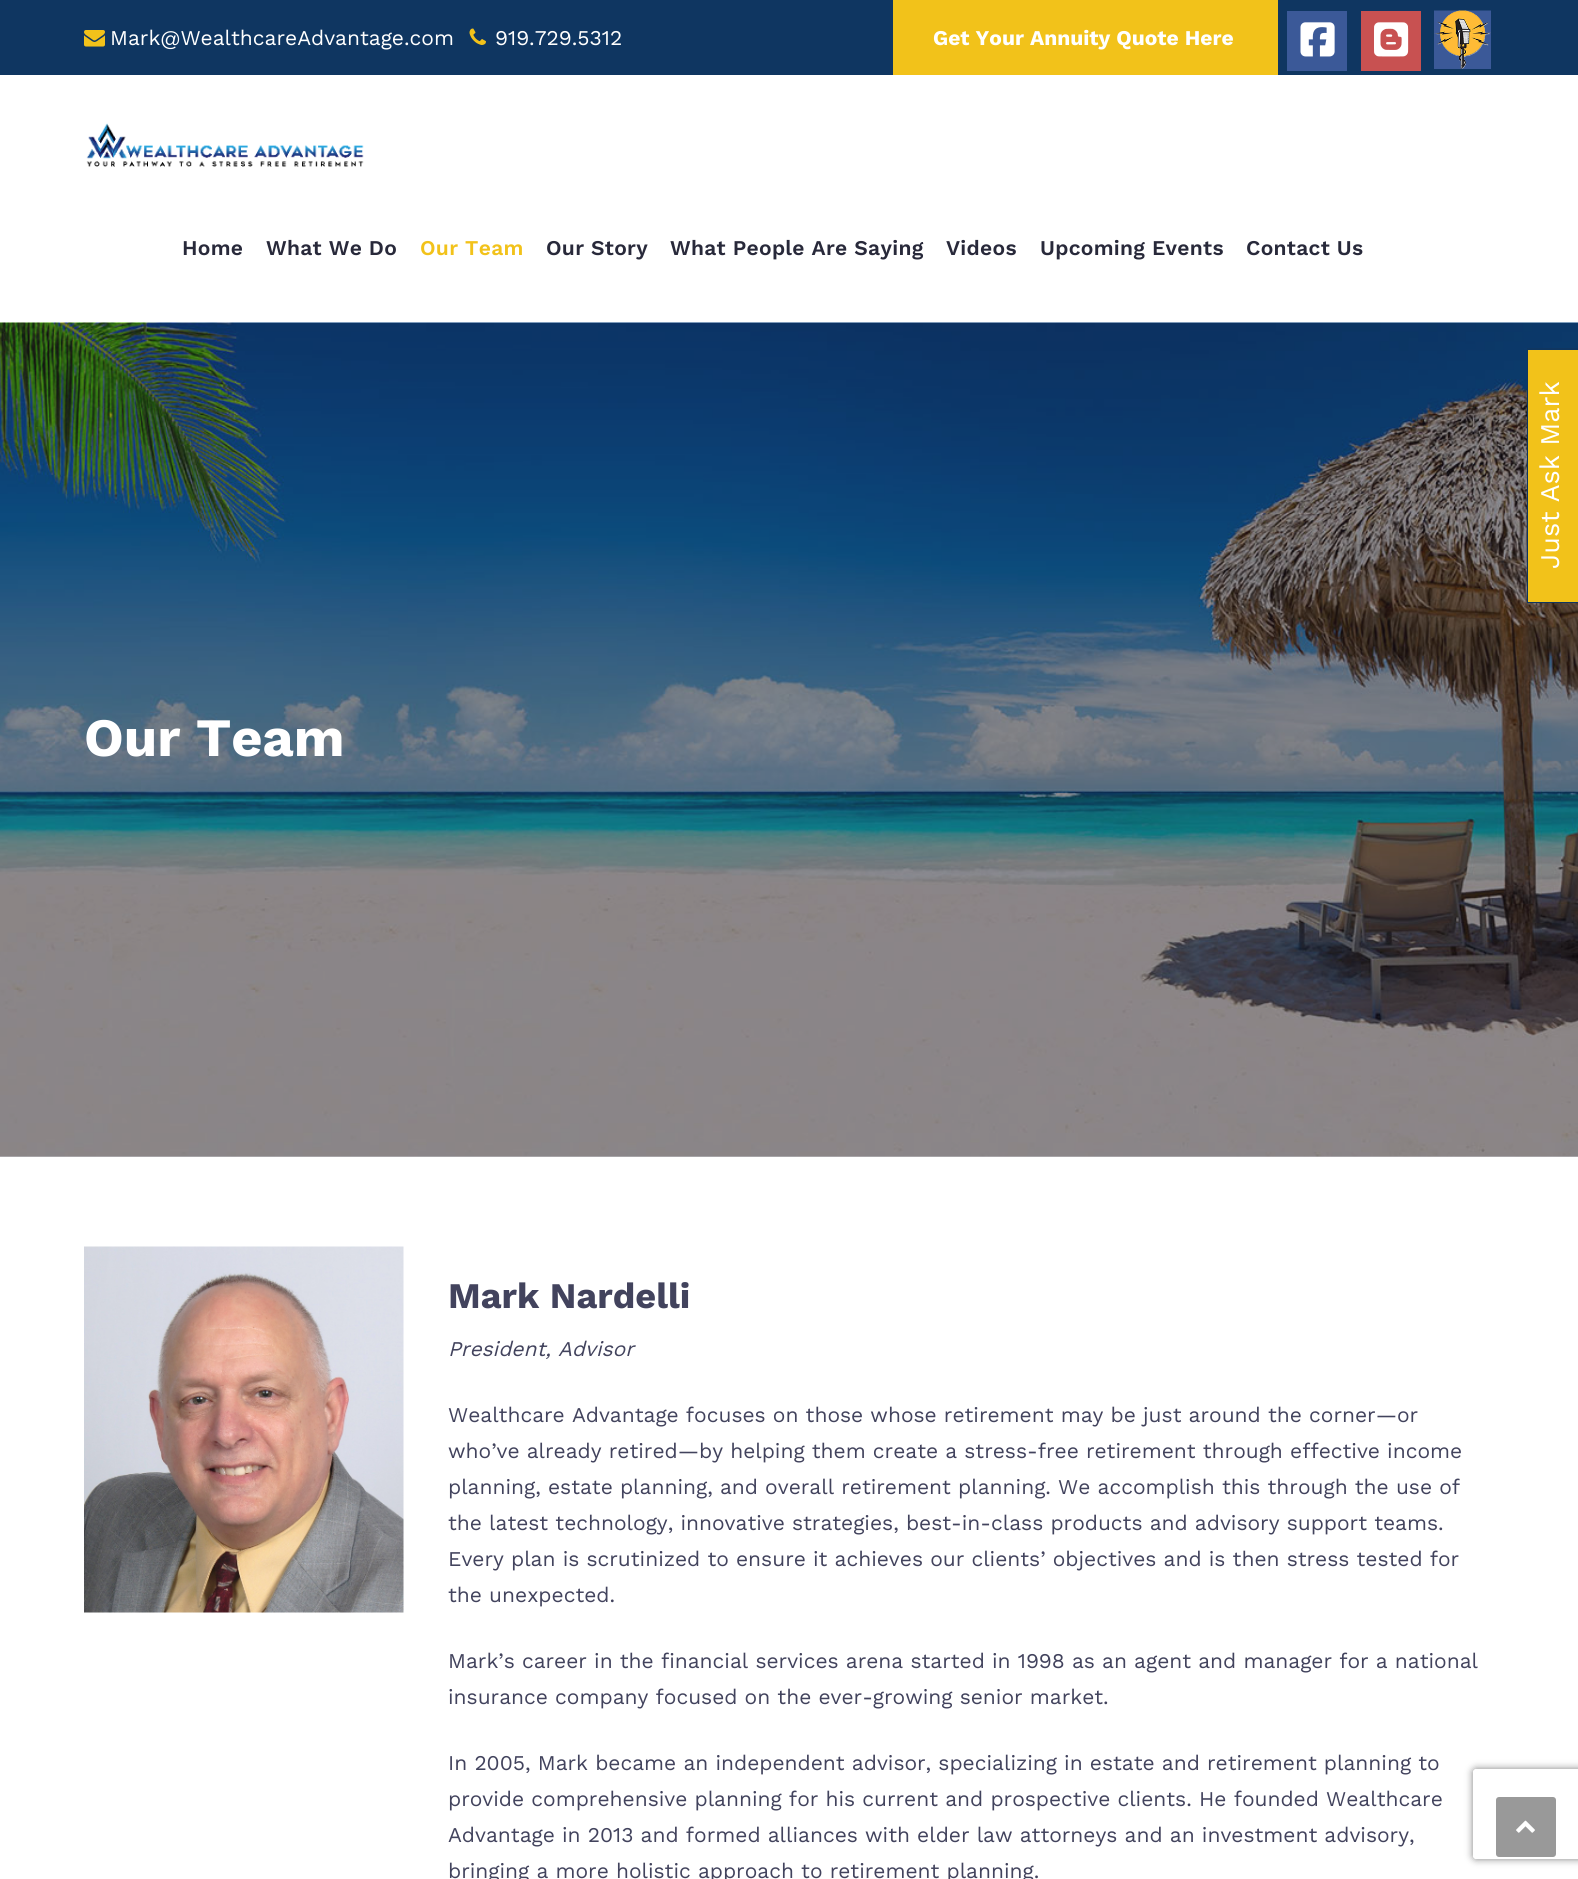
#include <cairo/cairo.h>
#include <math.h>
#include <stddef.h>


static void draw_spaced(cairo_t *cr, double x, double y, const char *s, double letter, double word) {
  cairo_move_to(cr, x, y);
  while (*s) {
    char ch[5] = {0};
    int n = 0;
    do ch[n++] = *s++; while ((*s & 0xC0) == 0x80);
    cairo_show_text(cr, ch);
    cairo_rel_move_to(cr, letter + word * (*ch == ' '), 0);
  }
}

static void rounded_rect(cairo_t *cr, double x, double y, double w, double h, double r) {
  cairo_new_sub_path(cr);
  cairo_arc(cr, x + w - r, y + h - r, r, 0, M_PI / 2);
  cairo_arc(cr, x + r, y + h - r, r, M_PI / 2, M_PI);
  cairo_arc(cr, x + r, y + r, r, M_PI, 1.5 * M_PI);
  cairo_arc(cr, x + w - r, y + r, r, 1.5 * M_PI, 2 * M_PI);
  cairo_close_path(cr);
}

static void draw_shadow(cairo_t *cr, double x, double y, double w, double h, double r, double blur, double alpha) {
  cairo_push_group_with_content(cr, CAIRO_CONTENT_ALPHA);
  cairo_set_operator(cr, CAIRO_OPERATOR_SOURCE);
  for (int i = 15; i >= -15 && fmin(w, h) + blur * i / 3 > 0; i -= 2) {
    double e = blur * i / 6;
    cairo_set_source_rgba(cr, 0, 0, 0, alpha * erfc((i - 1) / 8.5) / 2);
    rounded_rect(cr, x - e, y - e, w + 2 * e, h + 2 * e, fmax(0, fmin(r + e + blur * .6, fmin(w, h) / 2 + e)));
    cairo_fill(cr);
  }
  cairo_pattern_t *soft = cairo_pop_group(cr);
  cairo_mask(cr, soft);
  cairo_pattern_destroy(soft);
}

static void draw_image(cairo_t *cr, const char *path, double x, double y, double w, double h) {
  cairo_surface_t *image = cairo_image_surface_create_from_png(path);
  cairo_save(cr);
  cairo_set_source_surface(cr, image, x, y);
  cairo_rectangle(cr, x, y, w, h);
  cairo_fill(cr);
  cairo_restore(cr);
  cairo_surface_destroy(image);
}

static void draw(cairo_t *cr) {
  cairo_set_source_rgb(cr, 1, 1, 1);
  cairo_paint(cr);
  cairo_set_source_rgb(cr, 15 / 255.0, 54 / 255.0, 97 / 255.0);
  cairo_rectangle(cr, 0, 0, 1578, 75);
  cairo_fill(cr);
  draw_image(cr, "images/1.png", 84, 30, 21, 17);
  draw_image(cr, "images/2.png", 469, 28, 17, 17);
  cairo_set_source_rgb(cr, 242 / 255.0, 194 / 255.0, 26 / 255.0);
  cairo_rectangle(cr, 893, 0, 385, 75);
  cairo_fill(cr);
  cairo_set_source_rgb(cr, 59 / 255.0, 89 / 255.0, 152 / 255.0);
  cairo_rectangle(cr, 1287, 11, 60, 60);
  cairo_fill(cr);
  draw_image(cr, "images/3.png", 1300, 22, 35, 35);
  cairo_set_source_rgb(cr, 200 / 255.0, 81 / 255.0, 81 / 255.0);
  cairo_rectangle(cr, 1361, 11, 60, 60);
  cairo_fill(cr);
  draw_image(cr, "images/4.png", 1374, 22, 35, 35);
  draw_image(cr, "images/5.png", 1434, 10, 57, 59);
  draw_image(cr, "images/6.png", 86, 123, 278, 44);
  draw_image(cr, "images/7.png", 0, 322, 1578, 835);
  cairo_set_source_rgba(cr, 41 / 255.0, 38 / 255.0, 54 / 255.0, 0.28);
  cairo_rectangle(cr, 0, 323, 1578, 834);
  cairo_fill(cr);
  draw_image(cr, "images/8.png", 84, 1246, 320, 367);
  cairo_save(cr);
  cairo_set_fill_rule(cr, CAIRO_FILL_RULE_EVEN_ODD);
  cairo_new_path(cr);
  cairo_move_to(cr, 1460, 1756);
  cairo_line_to(cr, 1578, 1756);
  cairo_line_to(cr, 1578, 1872);
  cairo_line_to(cr, 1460, 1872);
  cairo_close_path(cr);
  cairo_move_to(cr, 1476, 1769);
  cairo_line_to(cr, 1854, 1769);
  cairo_curve_to(cr, 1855.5, 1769, 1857, 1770.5, 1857, 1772);
  cairo_line_to(cr, 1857, 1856);
  cairo_curve_to(cr, 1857, 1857.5, 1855.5, 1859, 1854, 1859);
  cairo_line_to(cr, 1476, 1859);
  cairo_curve_to(cr, 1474.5, 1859, 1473, 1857.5, 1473, 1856);
  cairo_line_to(cr, 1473, 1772);
  cairo_curve_to(cr, 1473, 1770.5, 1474.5, 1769, 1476, 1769);
  cairo_close_path(cr);
  cairo_clip(cr);
  cairo_set_source_rgb(cr, 128 / 255.0, 128 / 255.0, 128 / 255.0);
  draw_shadow(cr, 1473, 1769, 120, 90, 3, 4, 1);
  cairo_restore(cr);
  cairo_set_source_rgb(cr, 153 / 255.0, 153 / 255.0, 153 / 255.0);
  rounded_rect(cr, 1496, 1797, 60, 60, 3);
  cairo_fill(cr);
  draw_image(cr, "images/9.png", 1516, 1820, 19, 13);
  cairo_set_source_rgb(cr, 242 / 255.0, 194 / 255.0, 26 / 255.0);
  cairo_rectangle(cr, 1528, 350, 50, 252);
  cairo_fill(cr);
  cairo_set_source_rgb(cr, 15 / 255.0, 54 / 255.0, 97 / 255.0);
  cairo_rectangle(cr, 1527, 348, 1, 255);
  cairo_fill(cr);
  cairo_rectangle(cr, 1527, 348, 51, 2);
  cairo_fill(cr);
  cairo_rectangle(cr, 1527, 602, 51, 1);
  cairo_fill(cr);
  cairo_select_font_face(cr, "Work Sans", CAIRO_FONT_SLANT_NORMAL, CAIRO_FONT_WEIGHT_NORMAL);
  cairo_set_font_size(cr, 21);
  cairo_set_source_rgb(cr, 1, 1, 1);
  cairo_move_to(cr, 110, 45);
  cairo_show_text(cr, "Mark@WealthcareAdvantage.com");
  cairo_move_to(cr, 495, 45);
  cairo_show_text(cr, "919.729.5312");
  cairo_select_font_face(cr, "Work Sans", CAIRO_FONT_SLANT_NORMAL, CAIRO_FONT_WEIGHT_BOLD);
  cairo_move_to(cr, 933, 45);
  cairo_show_text(cr, "Get Your Annuity Quote Here");
  cairo_select_font_face(cr, "Work Sans SemiBold", CAIRO_FONT_SLANT_NORMAL, CAIRO_FONT_WEIGHT_NORMAL);
  cairo_set_source_rgb(cr, 40 / 255.0, 41 / 255.0, 58 / 255.0);
  draw_spaced(cr, 182, 255, "Home", 0.3, 0);
  draw_spaced(cr, 266, 255, "What We Do", 0.3, 0);
  cairo_set_source_rgb(cr, 242 / 255.0, 194 / 255.0, 26 / 255.0);
  draw_spaced(cr, 420, 255, "Our Team", 0.3, 0);
  cairo_set_source_rgb(cr, 40 / 255.0, 41 / 255.0, 58 / 255.0);
  draw_spaced(cr, 546, 255, "Our Story", 0.3, 0);
  draw_spaced(cr, 670, 255, "What People Are Saying", 0.3, 0);
  draw_spaced(cr, 946, 255, "Videos", 0.3, 0);
  draw_spaced(cr, 1040, 255, "Upcoming Events", 0.3, 0);
  draw_spaced(cr, 1246, 255, "Contact Us", 0.3, 0);
  cairo_select_font_face(cr, "Work Sans", CAIRO_FONT_SLANT_NORMAL, CAIRO_FONT_WEIGHT_BOLD);
  cairo_set_font_size(cr, 54);
  cairo_set_source_rgb(cr, 1, 1, 1);
  cairo_move_to(cr, 84, 756);
  cairo_show_text(cr, "Our Team");
  cairo_set_font_size(cr, 36);
  cairo_set_source_rgb(cr, 66 / 255.0, 67 / 255.0, 93 / 255.0);
  cairo_move_to(cr, 448, 1308);
  cairo_show_text(cr, "Mark Nardelli");
  cairo_select_font_face(cr, "Work Sans", CAIRO_FONT_SLANT_ITALIC, CAIRO_FONT_WEIGHT_NORMAL);
  cairo_set_font_size(cr, 21);
  cairo_move_to(cr, 448, 1356);
  cairo_show_text(cr, "President, Advisor");
  cairo_select_font_face(cr, "Work Sans", CAIRO_FONT_SLANT_NORMAL, CAIRO_FONT_WEIGHT_NORMAL);
  cairo_move_to(cr, 448, 1422);
  cairo_show_text(cr, "Wealthcare Advantage focuses on those whose retirement may be just around the corner—or");
  cairo_move_to(cr, 448, 1458);
  cairo_show_text(cr, "who’ve already retired—by helping them create a stress-free retirement through effective income");
  cairo_move_to(cr, 448, 1494);
  cairo_show_text(cr, "planning, estate planning, and overall retirement planning. We accomplish this through the use of");
  cairo_move_to(cr, 448, 1530);
  cairo_show_text(cr, "the latest technology, innovative strategies, best-in-class products and advisory support teams.");
  cairo_move_to(cr, 448, 1566);
  cairo_show_text(cr, "Every plan is scrutinized to ensure it achieves our clients’ objectives and is then stress tested for");
  cairo_move_to(cr, 448, 1602);
  cairo_show_text(cr, "the unexpected.");
  cairo_move_to(cr, 448, 1668);
  cairo_show_text(cr, "Mark’s career in the financial services arena started in 1998 as an agent and manager for a national");
  cairo_move_to(cr, 448, 1704);
  cairo_show_text(cr, "insurance company focused on the ever-growing senior market.");
  cairo_move_to(cr, 448, 1770);
  cairo_show_text(cr, "In 2005, Mark became an independent advisor, specializing in estate and retirement planning to");
  cairo_move_to(cr, 448, 1806);
  cairo_show_text(cr, "provide comprehensive planning for his current and prospective clients. He founded Wealthcare");
  cairo_move_to(cr, 448, 1842);
  cairo_show_text(cr, "Advantage in 2013 and formed alliances with elder law attorneys and an investment advisory,");
  cairo_move_to(cr, 448, 1878);
  cairo_show_text(cr, "bringing a more holistic approach to retirement planning.");
  cairo_set_font_size(cr, 27);
  cairo_set_source_rgb(cr, 1, 1, 1);
  cairo_save(cr);
  cairo_translate(cr, 1559, 569);
  cairo_rotate(cr, -90 * M_PI / 180);
  cairo_move_to(cr, 0, 0);
  cairo_show_text(cr, "Just Ask Mark");
  cairo_restore(cr);
}

int main(void) {
  cairo_surface_t *surface = cairo_image_surface_create(CAIRO_FORMAT_RGB24, 1578, 1879);
  cairo_t *cr = cairo_create(surface);
  cairo_font_options_t *options = cairo_font_options_create();
  cairo_font_options_set_hint_metrics(options, CAIRO_HINT_METRICS_OFF);
  cairo_font_options_set_hint_style(options, CAIRO_HINT_STYLE_NONE);
  cairo_set_font_options(cr, options);
  cairo_set_miter_limit(cr, 4);
  draw(cr);
  cairo_surface_write_to_png(surface, "out.png");
  cairo_font_options_destroy(options);
  cairo_destroy(cr);
  cairo_surface_destroy(surface);
  return 0;
}
